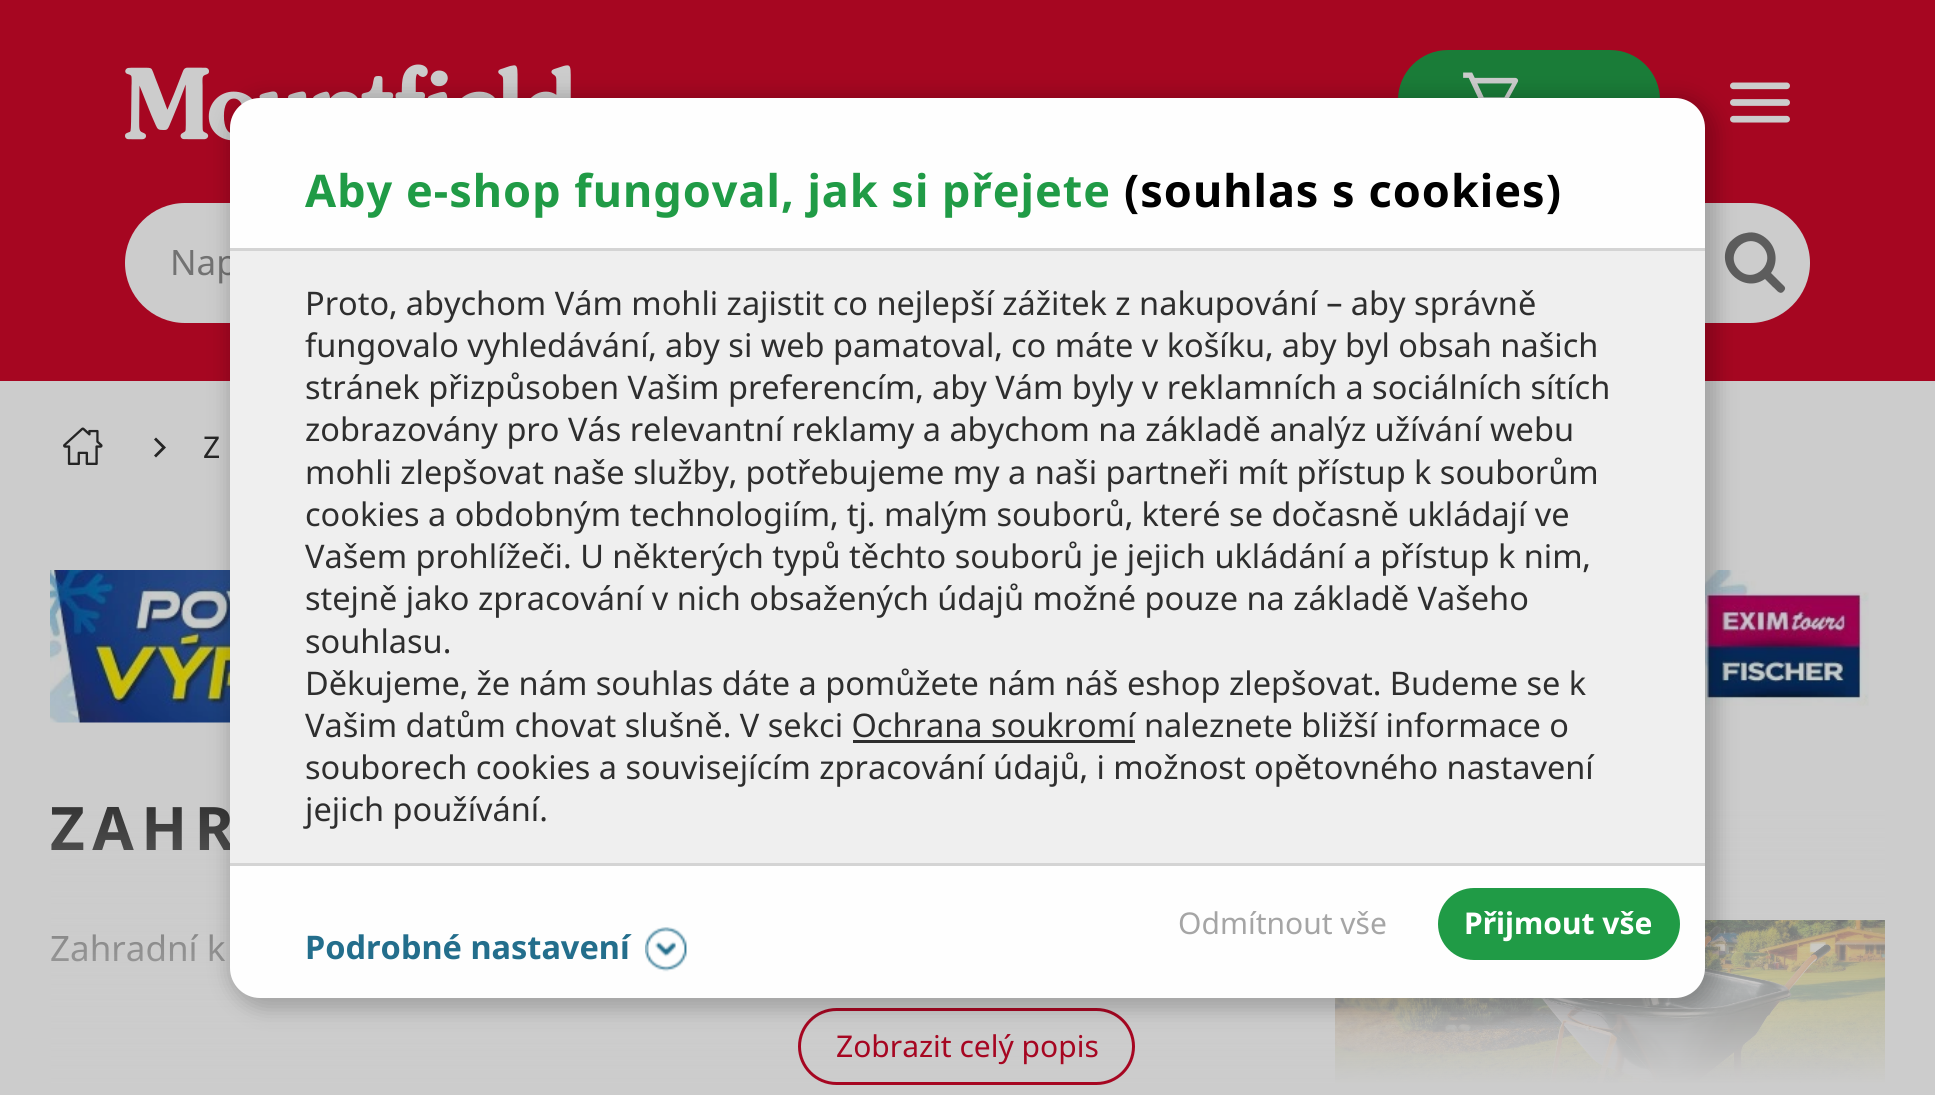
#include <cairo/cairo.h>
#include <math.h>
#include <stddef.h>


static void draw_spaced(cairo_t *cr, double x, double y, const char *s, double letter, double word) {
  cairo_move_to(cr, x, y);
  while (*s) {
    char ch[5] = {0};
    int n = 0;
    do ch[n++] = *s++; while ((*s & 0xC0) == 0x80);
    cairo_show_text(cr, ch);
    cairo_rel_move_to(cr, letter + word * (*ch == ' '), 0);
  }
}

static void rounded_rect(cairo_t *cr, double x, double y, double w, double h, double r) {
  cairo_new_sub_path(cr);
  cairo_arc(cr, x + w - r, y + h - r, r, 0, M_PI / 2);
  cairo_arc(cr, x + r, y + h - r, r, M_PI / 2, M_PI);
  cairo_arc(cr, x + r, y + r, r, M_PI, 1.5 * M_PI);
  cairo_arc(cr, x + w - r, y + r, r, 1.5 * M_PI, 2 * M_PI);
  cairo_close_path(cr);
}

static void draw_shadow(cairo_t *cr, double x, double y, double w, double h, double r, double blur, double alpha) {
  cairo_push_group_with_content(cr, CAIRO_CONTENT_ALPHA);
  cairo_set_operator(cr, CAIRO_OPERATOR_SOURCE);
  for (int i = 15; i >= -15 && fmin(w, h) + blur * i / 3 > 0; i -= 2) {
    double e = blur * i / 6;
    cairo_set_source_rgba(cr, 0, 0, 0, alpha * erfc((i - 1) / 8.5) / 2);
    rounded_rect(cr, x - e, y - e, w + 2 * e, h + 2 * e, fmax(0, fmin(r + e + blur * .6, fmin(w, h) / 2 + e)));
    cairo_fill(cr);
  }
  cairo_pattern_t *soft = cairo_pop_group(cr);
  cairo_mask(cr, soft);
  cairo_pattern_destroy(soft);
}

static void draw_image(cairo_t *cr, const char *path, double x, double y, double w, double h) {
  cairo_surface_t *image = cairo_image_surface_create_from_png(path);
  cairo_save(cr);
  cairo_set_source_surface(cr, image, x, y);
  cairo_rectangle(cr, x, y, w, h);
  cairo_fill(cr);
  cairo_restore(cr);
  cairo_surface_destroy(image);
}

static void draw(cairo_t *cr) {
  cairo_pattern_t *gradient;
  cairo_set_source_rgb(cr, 204 / 255.0, 204 / 255.0, 204 / 255.0);
  cairo_paint(cr);
  cairo_set_source_rgb(cr, 166 / 255.0, 6 / 255.0, 33 / 255.0);
  cairo_rectangle(cr, 0, 0, 1935, 381);
  cairo_fill(cr);
  draw_image(cr, "images/2.png", 125, 64, 446, 77);
  cairo_set_source_rgb(cr, 26 / 255.0, 124 / 255.0, 56 / 255.0);
  rounded_rect(cr, 1398, 50, 262, 103, 50);
  cairo_fill(cr);
  draw_image(cr, "images/3.png", 1463, 72, 56, 26);
  draw_image(cr, "images/4.png", 1730, 82, 60, 41);
  cairo_set_source_rgb(cr, 204 / 255.0, 204 / 255.0, 204 / 255.0);
  cairo_new_path(cr);
  cairo_move_to(cr, 185, 203);
  cairo_line_to(cr, 1673, 203);
  cairo_line_to(cr, 1673, 323);
  cairo_line_to(cr, 185, 323);
  cairo_curve_to(cr, 152, 323, 125, 296, 125, 263);
  cairo_curve_to(cr, 125, 230, 152, 203, 185, 203);
  cairo_close_path(cr);
  cairo_fill(cr);
  cairo_new_path(cr);
  cairo_move_to(cr, 1673, 203);
  cairo_line_to(cr, 1750, 203);
  cairo_curve_to(cr, 1783, 203, 1810, 230, 1810, 263);
  cairo_curve_to(cr, 1810, 296, 1783, 323, 1750, 323);
  cairo_line_to(cr, 1673, 323);
  cairo_close_path(cr);
  cairo_fill(cr);
  cairo_set_source_rgb(cr, 93 / 255.0, 93 / 255.0, 93 / 255.0);
  cairo_new_path(cr);
  cairo_move_to(cr, 1768, 240);
  cairo_curve_to(cr, 1777, 249, 1778, 263, 1771, 273);
  cairo_line_to(cr, 1784, 286);
  cairo_curve_to(cr, 1786, 288, 1785, 290, 1783, 292);
  cairo_curve_to(cr, 1779, 295, 1776, 289, 1773, 287);
  cairo_line_to(cr, 1765, 279);
  cairo_curve_to(cr, 1742, 295, 1713, 265, 1730, 242);
  cairo_curve_to(cr, 1734, 238, 1739, 234, 1746, 233);
  cairo_curve_to(cr, 1754, 231, 1762, 234, 1768, 240);
  cairo_close_path(cr);
  cairo_move_to(cr, 1739, 270);
  cairo_curve_to(cr, 1754, 285, 1778, 262, 1762, 246);
  cairo_curve_to(cr, 1747, 231, 1723, 254, 1739, 270);
  cairo_close_path(cr);
  cairo_fill(cr);
  draw_image(cr, "images/5.png", 63, 427, 40, 38);
  cairo_set_source_rgb(cr, 37 / 255.0, 37 / 255.0, 37 / 255.0);
  cairo_new_path(cr);
  cairo_move_to(cr, 156, 457.5);
  cairo_line_to(cr, 166, 447.5);
  cairo_line_to(cr, 156, 437.5);
  cairo_line_to(cr, 154, 439.5);
  cairo_line_to(cr, 162, 447.5);
  cairo_line_to(cr, 154, 455.5);
  cairo_close_path(cr);
  cairo_fill(cr);
  draw_image(cr, "images/6.png", 50, 570, 1819, 153);
  draw_image(cr, "images/7.png", 1335, 920, 550, 163);
  cairo_select_font_face(cr, "Noto Sans", CAIRO_FONT_SLANT_NORMAL, CAIRO_FONT_WEIGHT_NORMAL);
  cairo_set_font_size(cr, 35);
  cairo_set_source_rgb(cr, 114 / 255.0, 114 / 255.0, 114 / 255.0);
  cairo_move_to(cr, 170, 275);
  cairo_show_text(cr, "Nap");
  cairo_set_font_size(cr, 30);
  cairo_set_source_rgb(cr, 37 / 255.0, 37 / 255.0, 37 / 255.0);
  draw_spaced(cr, 203, 458, "Z", 2, 0);
  cairo_select_font_face(cr, "Noto Sans", CAIRO_FONT_SLANT_NORMAL, CAIRO_FONT_WEIGHT_BOLD);
  cairo_set_font_size(cr, 60);
  cairo_set_source_rgb(cr, 0, 0, 0);
  draw_spaced(cr, 50, 850, "ZAHR", 7.5, 0);
  cairo_select_font_face(cr, "Noto Sans", CAIRO_FONT_SLANT_NORMAL, CAIRO_FONT_WEIGHT_NORMAL);
  cairo_set_font_size(cr, 35);
  cairo_set_source_rgb(cr, 37 / 255.0, 37 / 255.0, 37 / 255.0);
  cairo_move_to(cr, 50, 961);
  cairo_show_text(cr, "Zahradní k");
  gradient = cairo_pattern_create_linear(968, 585, 968, 1085);
  cairo_pattern_add_color_stop_rgba(gradient, 0.25, 204 / 255.0, 204 / 255.0, 204 / 255.0, 0);
  cairo_pattern_add_color_stop_rgba(gradient, 1, 204 / 255.0, 204 / 255.0, 204 / 255.0, 1);
  cairo_set_source(cr, gradient);
  cairo_pattern_destroy(gradient);
  cairo_rectangle(cr, 51, 807, 1834, 276);
  cairo_fill(cr);
  rounded_rect(cr, 799.5, 1009.5, 334, 74, 37);
  cairo_set_source_rgb(cr, 166 / 255.0, 6 / 255.0, 33 / 255.0);
  cairo_set_line_width(cr, 3);
  cairo_stroke(cr);
  cairo_set_source_rgb(cr, 0, 0, 0);
  draw_shadow(cr, 228, 95, 1490, 915, 38, 10, 0.2);
  cairo_set_source_rgb(cr, 254 / 255.0, 254 / 255.0, 254 / 255.0);
  rounded_rect(cr, 230, 98, 1475, 900, 30);
  cairo_fill(cr);
  cairo_set_source_rgb(cr, 32 / 255.0, 155 / 255.0, 70 / 255.0);
  rounded_rect(cr, 1439.5, 889.5, 239, 69, 34.5);
  cairo_fill_preserve(cr);
  cairo_stroke(cr);
  cairo_select_font_face(cr, "Noto Sans", CAIRO_FONT_SLANT_NORMAL, CAIRO_FONT_WEIGHT_BOLD);
  cairo_set_font_size(cr, 30);
  cairo_set_source_rgb(cr, 1, 1, 1);
  cairo_move_to(cr, 1464, 934);
  cairo_show_text(cr, "Přijmout vše");
  cairo_select_font_face(cr, "Noto Sans", CAIRO_FONT_SLANT_NORMAL, CAIRO_FONT_WEIGHT_NORMAL);
  cairo_set_source_rgb(cr, 165 / 255.0, 165 / 255.0, 165 / 255.0);
  cairo_move_to(cr, 1178, 934);
  cairo_show_text(cr, "Odmítnout vše");
  draw_image(cr, "images/1.png", 645, 927, 42, 45);
  cairo_select_font_face(cr, "Noto Sans", CAIRO_FONT_SLANT_NORMAL, CAIRO_FONT_WEIGHT_BOLD);
  cairo_set_font_size(cr, 32.5);
  cairo_set_source_rgb(cr, 35 / 255.0, 110 / 255.0, 140 / 255.0);
  cairo_move_to(cr, 305, 959);
  cairo_show_text(cr, "Podrobné nastavení");
  cairo_set_source_rgb(cr, 239 / 255.0, 239 / 255.0, 239 / 255.0);
  cairo_rectangle(cr, 230, 251, 1475, 612);
  cairo_fill(cr);
  cairo_select_font_face(cr, "Noto Sans", CAIRO_FONT_SLANT_NORMAL, CAIRO_FONT_WEIGHT_NORMAL);
  cairo_set_source_rgb(cr, 46 / 255.0, 46 / 255.0, 46 / 255.0);
  cairo_move_to(cr, 305, 821);
  cairo_show_text(cr, "jejich používání.");
  cairo_move_to(cr, 305, 779);
  cairo_show_text(cr, "souborech cookies a souvisejícím zpracování údajů, i možnost opětovného nastavení");
  cairo_rectangle(cr, 853, 740, 282, 3);
  cairo_fill(cr);
  cairo_move_to(cr, 305, 737);
  cairo_show_text(cr, "Vašim datům chovat slušně. V sekci Ochrana soukromí naleznete bližší informace o");
  cairo_move_to(cr, 305, 695);
  cairo_show_text(cr, "Děkujeme, že nám souhlas dáte a pomůžete nám náš eshop zlepšovat. Budeme se k");
  cairo_move_to(cr, 305, 653);
  cairo_show_text(cr, "souhlasu.");
  cairo_move_to(cr, 305, 610);
  cairo_show_text(cr, "stejně jako zpracování v nich obsažených údajů možné pouze na základě Vašeho");
  cairo_move_to(cr, 305, 568);
  cairo_show_text(cr, "Vašem prohlížeči. U některých typů těchto souborů je jejich ukládání a přístup k nim,");
  cairo_move_to(cr, 305, 526);
  cairo_show_text(cr, "cookies a obdobným technologiím, tj. malým souborů, které se dočasně ukládají ve");
  cairo_move_to(cr, 305, 484);
  cairo_show_text(cr, "mohli zlepšovat naše služby, potřebujeme my a naši partneři mít přístup k souborům");
  cairo_move_to(cr, 305, 441);
  cairo_show_text(cr, "zobrazovány pro Vás relevantní reklamy a abychom na základě analýz užívání webu");
  cairo_move_to(cr, 305, 399);
  cairo_show_text(cr, "stránek přizpůsoben Vašim preferencím, aby Vám byly v reklamních a sociálních sítích");
  cairo_move_to(cr, 305, 357);
  cairo_show_text(cr, "fungovalo vyhledávání, aby si web pamatoval, co máte v košíku, aby byl obsah našich");
  cairo_move_to(cr, 305, 315);
  cairo_show_text(cr, "Proto, abychom Vám mohli zajistit co nejlepší zážitek z nakupování – aby správně");
  cairo_select_font_face(cr, "Noto Sans", CAIRO_FONT_SLANT_NORMAL, CAIRO_FONT_WEIGHT_BOLD);
  cairo_set_font_size(cr, 45);
  cairo_set_source_rgb(cr, 0, 0, 0);
  draw_spaced(cr, 1124, 207, "(souhlas s cookies)", 1, 0);
  cairo_set_source_rgb(cr, 32 / 255.0, 155 / 255.0, 70 / 255.0);
  draw_spaced(cr, 305, 207, "Aby e-shop fungoval, jak si přejete", 1, 0);
  cairo_set_source_rgb(cr, 212 / 255.0, 212 / 255.0, 212 / 255.0);
  cairo_rectangle(cr, 230, 863, 1475, 3);
  cairo_fill(cr);
  cairo_rectangle(cr, 230, 248, 1475, 3);
  cairo_fill(cr);
  cairo_select_font_face(cr, "Noto Sans", CAIRO_FONT_SLANT_NORMAL, CAIRO_FONT_WEIGHT_NORMAL);
  cairo_set_font_size(cr, 30);
  cairo_set_source_rgb(cr, 166 / 255.0, 6 / 255.0, 33 / 255.0);
  cairo_move_to(cr, 836, 1057);
  cairo_show_text(cr, "Zobrazit celý popis");
}

int main(void) {
  cairo_surface_t *surface = cairo_image_surface_create(CAIRO_FORMAT_RGB24, 1935, 1095);
  cairo_t *cr = cairo_create(surface);
  cairo_font_options_t *options = cairo_font_options_create();
  cairo_font_options_set_hint_metrics(options, CAIRO_HINT_METRICS_OFF);
  cairo_font_options_set_hint_style(options, CAIRO_HINT_STYLE_NONE);
  cairo_set_font_options(cr, options);
  cairo_set_miter_limit(cr, 4);
  draw(cr);
  cairo_surface_write_to_png(surface, "out.png");
  cairo_font_options_destroy(options);
  cairo_destroy(cr);
  cairo_surface_destroy(surface);
  return 0;
}
